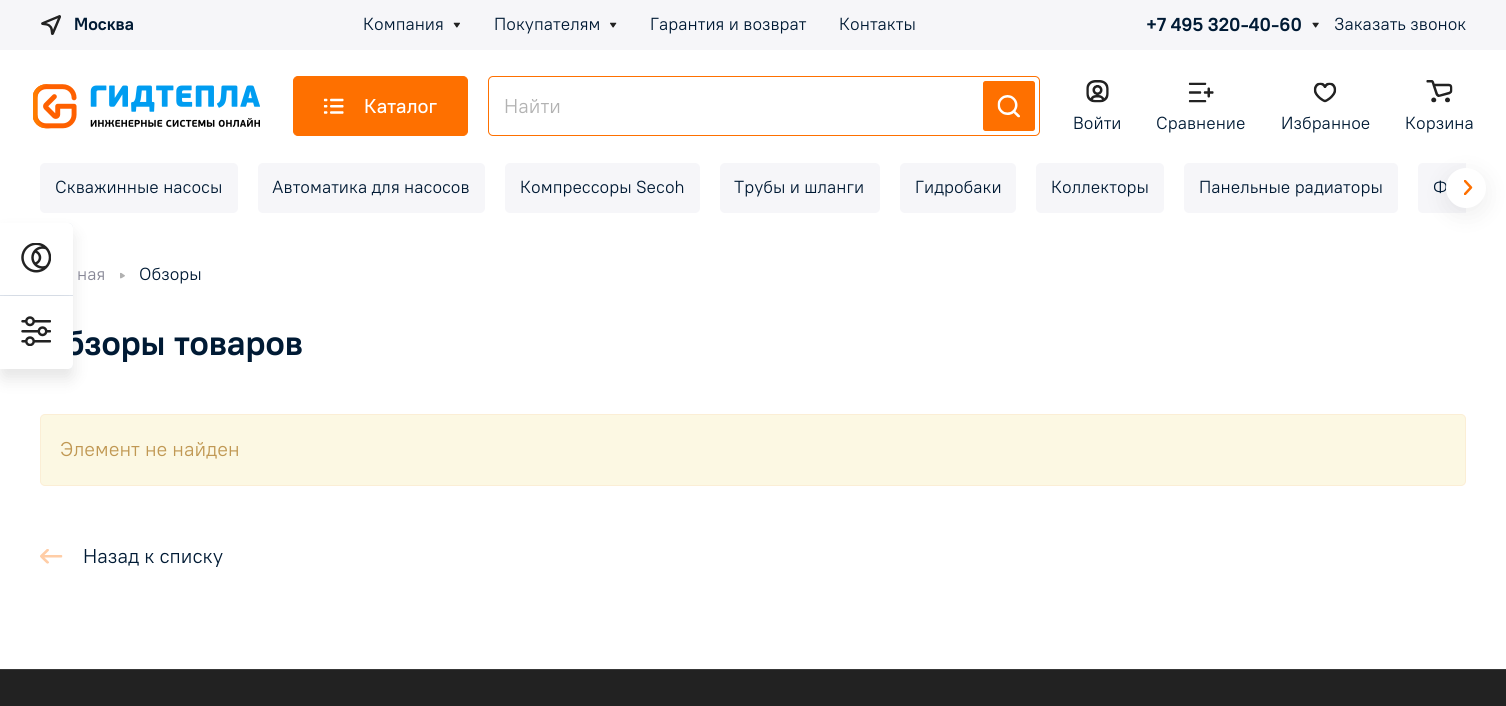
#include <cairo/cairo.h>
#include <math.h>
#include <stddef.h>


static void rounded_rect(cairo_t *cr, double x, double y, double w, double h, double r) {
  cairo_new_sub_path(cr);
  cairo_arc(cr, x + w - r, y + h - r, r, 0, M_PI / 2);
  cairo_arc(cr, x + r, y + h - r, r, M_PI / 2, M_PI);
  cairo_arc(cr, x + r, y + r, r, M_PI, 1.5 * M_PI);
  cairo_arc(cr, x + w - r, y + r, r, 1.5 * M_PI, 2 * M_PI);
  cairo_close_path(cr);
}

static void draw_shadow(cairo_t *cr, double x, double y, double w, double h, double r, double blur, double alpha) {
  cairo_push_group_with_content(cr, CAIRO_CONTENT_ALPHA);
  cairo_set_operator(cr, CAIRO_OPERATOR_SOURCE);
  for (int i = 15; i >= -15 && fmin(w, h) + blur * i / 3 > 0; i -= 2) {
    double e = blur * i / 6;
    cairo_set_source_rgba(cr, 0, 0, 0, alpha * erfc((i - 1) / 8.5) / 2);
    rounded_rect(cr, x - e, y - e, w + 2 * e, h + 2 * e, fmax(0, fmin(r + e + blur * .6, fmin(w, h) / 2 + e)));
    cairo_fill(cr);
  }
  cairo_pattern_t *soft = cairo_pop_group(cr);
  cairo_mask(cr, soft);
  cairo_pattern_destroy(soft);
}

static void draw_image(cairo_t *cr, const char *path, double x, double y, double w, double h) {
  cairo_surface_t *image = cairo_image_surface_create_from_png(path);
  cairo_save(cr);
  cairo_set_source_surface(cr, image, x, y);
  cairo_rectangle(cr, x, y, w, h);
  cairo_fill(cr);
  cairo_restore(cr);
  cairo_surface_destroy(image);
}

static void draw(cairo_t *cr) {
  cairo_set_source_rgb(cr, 1, 1, 1);
  cairo_paint(cr);
  cairo_set_source_rgb(cr, 246 / 255.0, 246 / 255.0, 249 / 255.0);
  rounded_rect(cr, 40, 163, 198, 50, 5);
  cairo_fill(cr);
  cairo_set_source_rgb(cr, 0, 0, 0);
  draw_shadow(cr, 0, 233, 73, 146, 5, 8, 0.1);
  cairo_set_source_rgb(cr, 246 / 255.0, 246 / 255.0, 249 / 255.0);
  cairo_rectangle(cr, 0, 0, 1506, 50);
  cairo_fill(cr);
  draw_image(cr, "images/3.png", 41, 15, 20, 20);
  draw_image(cr, "images/4.png", 453, 22, 7, 6);
  draw_image(cr, "images/5.png", 610, 22, 7, 6);
  draw_image(cr, "images/6.png", 1312, 22, 7, 6);
  draw_image(cr, "images/7.png", 33, 84, 227, 45);
  cairo_set_source_rgb(cr, 254 / 255.0, 112 / 255.0, 0);
  rounded_rect(cr, 293.5, 76.5, 174, 59, 4.5);
  cairo_fill_preserve(cr);
  cairo_set_line_width(cr, 1);
  cairo_stroke(cr);
  draw_image(cr, "images/8.png", 323, 98, 21, 16);
  rounded_rect(cr, 488.5, 76.5, 551, 59, 4.5);
  cairo_stroke(cr);
  rounded_rect(cr, 983, 81, 52, 50, 2.5);
  cairo_fill(cr);
  draw_image(cr, "images/9.png", 997, 95, 23, 23);
  draw_image(cr, "images/10.png", 1086, 80, 23, 23);
  draw_image(cr, "images/11.png", 1188, 82, 26, 21);
  draw_image(cr, "images/12.png", 1313, 82, 24, 21);
  draw_image(cr, "images/13.png", 1426, 80, 27, 23);
  cairo_set_source_rgb(cr, 246 / 255.0, 246 / 255.0, 249 / 255.0);
  rounded_rect(cr, 258, 163, 227, 50, 5);
  cairo_fill(cr);
  rounded_rect(cr, 505, 163, 195, 50, 5);
  cairo_fill(cr);
  rounded_rect(cr, 720, 163, 160, 50, 5);
  cairo_fill(cr);
  rounded_rect(cr, 900, 163, 116, 50, 5);
  cairo_fill(cr);
  rounded_rect(cr, 1036, 163, 128, 50, 5);
  cairo_fill(cr);
  rounded_rect(cr, 1184, 163, 214, 50, 5);
  cairo_fill(cr);
  cairo_new_path(cr);
  cairo_move_to(cr, 1423, 163);
  cairo_line_to(cr, 1466, 163);
  cairo_line_to(cr, 1466, 213);
  cairo_line_to(cr, 1423, 213);
  cairo_curve_to(cr, 1420, 213, 1418, 211, 1418, 208);
  cairo_line_to(cr, 1418, 168);
  cairo_curve_to(cr, 1418, 165, 1420, 163, 1423, 163);
  cairo_close_path(cr);
  cairo_fill(cr);
  cairo_set_source_rgb(cr, 0, 0, 0);
  draw_shadow(cr, 1446, 174, 40, 40, 20, 12.5, 0.07);
  draw_image(cr, "images/14.png", 120, 272, 5, 7);
  cairo_set_source_rgb(cr, 252 / 255.0, 248 / 255.0, 227 / 255.0);
  rounded_rect(cr, 40.5, 414.5, 1425, 71, 4.5);
  cairo_fill_preserve(cr);
  cairo_set_source_rgb(cr, 251 / 255.0, 238 / 255.0, 213 / 255.0);
  cairo_stroke(cr);
  draw_image(cr, "images/15.png", 40, 549, 23, 15);
  cairo_set_source_rgb(cr, 34 / 255.0, 34 / 255.0, 34 / 255.0);
  cairo_rectangle(cr, 0, 670, 1506, 36);
  cairo_fill(cr);
  cairo_set_source_rgb(cr, 56 / 255.0, 56 / 255.0, 56 / 255.0);
  cairo_rectangle(cr, 0, 669, 1506, 1);
  cairo_fill(cr);
  cairo_select_font_face(cr, "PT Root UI", CAIRO_FONT_SLANT_NORMAL, CAIRO_FONT_WEIGHT_BOLD);
  cairo_set_font_size(cr, 17.5);
  cairo_set_source_rgb(cr, 0, 26 / 255.0, 52 / 255.0);
  cairo_move_to(cr, 74, 30);
  cairo_show_text(cr, "Москва");
  cairo_select_font_face(cr, "PT Root UI", CAIRO_FONT_SLANT_NORMAL, CAIRO_FONT_WEIGHT_NORMAL);
  cairo_move_to(cr, 363, 30);
  cairo_show_text(cr, "Компания");
  cairo_move_to(cr, 494, 30);
  cairo_show_text(cr, "Покупателям");
  cairo_move_to(cr, 650, 30);
  cairo_show_text(cr, "Гарантия и возврат");
  cairo_move_to(cr, 839, 30);
  cairo_show_text(cr, "Контакты");
  cairo_select_font_face(cr, "PT Root UI", CAIRO_FONT_SLANT_NORMAL, CAIRO_FONT_WEIGHT_BOLD);
  cairo_set_font_size(cr, 18.75);
  cairo_move_to(cr, 1146, 31);
  cairo_show_text(cr, "+7 495 320-40-60");
  cairo_select_font_face(cr, "PT Root UI", CAIRO_FONT_SLANT_NORMAL, CAIRO_FONT_WEIGHT_NORMAL);
  cairo_set_font_size(cr, 17.5);
  cairo_move_to(cr, 1334, 30);
  cairo_show_text(cr, "Заказать звонок");
  cairo_select_font_face(cr, "PT Root UI Medium", CAIRO_FONT_SLANT_NORMAL, CAIRO_FONT_WEIGHT_NORMAL);
  cairo_set_font_size(cr, 20);
  cairo_set_source_rgb(cr, 1, 1, 1);
  cairo_move_to(cr, 364, 113);
  cairo_show_text(cr, "Каталог");
  cairo_select_font_face(cr, "PT Root UI", CAIRO_FONT_SLANT_NORMAL, CAIRO_FONT_WEIGHT_NORMAL);
  cairo_set_source_rgb(cr, 178 / 255.0, 178 / 255.0, 178 / 255.0);
  cairo_move_to(cr, 504, 113);
  cairo_show_text(cr, "Найти");
  cairo_set_font_size(cr, 17.5);
  cairo_set_source_rgb(cr, 0, 26 / 255.0, 52 / 255.0);
  cairo_move_to(cr, 1073, 129);
  cairo_show_text(cr, "Войти");
  cairo_move_to(cr, 1156, 129);
  cairo_show_text(cr, "Сравнение");
  cairo_move_to(cr, 1281, 129);
  cairo_show_text(cr, "Избранное");
  cairo_move_to(cr, 1405, 129);
  cairo_show_text(cr, "Корзина");
  cairo_move_to(cr, 55, 193);
  cairo_show_text(cr, "Скважинные насосы");
  cairo_move_to(cr, 272, 193);
  cairo_show_text(cr, "Автоматика для насосов");
  cairo_move_to(cr, 520, 193);
  cairo_show_text(cr, "Компрессоры Secoh");
  cairo_move_to(cr, 734, 193);
  cairo_show_text(cr, "Трубы и шланги");
  cairo_move_to(cr, 915, 193);
  cairo_show_text(cr, "Гидробаки");
  cairo_move_to(cr, 1051, 193);
  cairo_show_text(cr, "Коллекторы");
  cairo_move_to(cr, 1199, 193);
  cairo_show_text(cr, "Панельные радиаторы");
  cairo_move_to(cr, 1433, 193);
  cairo_show_text(cr, "Ф");
  cairo_set_source_rgb(cr, 1, 1, 1);
  cairo_new_path(cr);
  cairo_arc(cr, 1466, 188, 20, 0, 2 * M_PI);
  cairo_fill(cr);
  cairo_save(cr);
  cairo_rectangle(cr, 1464, 180, 9, 15);
  cairo_clip(cr);
  cairo_new_path(cr);
  cairo_move_to(cr, 1465, 181);
  cairo_line_to(cr, 1471, 187.5);
  cairo_line_to(cr, 1465, 194);
  cairo_set_source_rgb(cr, 254 / 255.0, 112 / 255.0, 0);
  cairo_set_line_width(cr, 2.5);
  cairo_set_line_cap(cr, CAIRO_LINE_CAP_ROUND);
  cairo_set_line_join(cr, CAIRO_LINE_JOIN_ROUND);
  cairo_stroke(cr);
  cairo_restore(cr);
  cairo_set_source_rgb(cr, 134 / 255.0, 134 / 255.0, 149 / 255.0);
  cairo_move_to(cr, 77, 280);
  cairo_show_text(cr, "ная");
  cairo_set_source_rgb(cr, 0, 26 / 255.0, 52 / 255.0);
  cairo_move_to(cr, 139, 280);
  cairo_show_text(cr, "Обзоры");
  cairo_select_font_face(cr, "PT Root UI", CAIRO_FONT_SLANT_NORMAL, CAIRO_FONT_WEIGHT_BOLD);
  cairo_set_font_size(cr, 35);
  cairo_move_to(cr, 65, 355);
  cairo_show_text(cr, "бзоры товаров");
  cairo_set_source_rgba(cr, 204 / 255.0, 214 / 255.0, 228 / 255.0, 0.6);
  cairo_new_path(cr);
  cairo_move_to(cr, 0, 223);
  cairo_line_to(cr, 68, 223);
  cairo_curve_to(cr, 71, 223, 73, 225, 73, 228);
  cairo_line_to(cr, 73, 364);
  cairo_curve_to(cr, 73, 367, 71, 369, 68, 369);
  cairo_line_to(cr, 0, 369);
  cairo_close_path(cr);
  cairo_fill(cr);
  cairo_set_source_rgb(cr, 1, 1, 1);
  cairo_new_path(cr);
  cairo_move_to(cr, 0, 296);
  cairo_line_to(cr, 73, 296);
  cairo_line_to(cr, 73, 364);
  cairo_curve_to(cr, 73, 367, 71, 369, 68, 369);
  cairo_line_to(cr, 0, 369);
  cairo_close_path(cr);
  cairo_fill(cr);
  draw_image(cr, "images/2.png", 21, 316, 30, 30);
  cairo_new_path(cr);
  cairo_move_to(cr, 0, 223);
  cairo_line_to(cr, 68, 223);
  cairo_curve_to(cr, 71, 223, 73, 225, 73, 228);
  cairo_line_to(cr, 73, 295);
  cairo_line_to(cr, 0, 295);
  cairo_close_path(cr);
  cairo_fill(cr);
  draw_image(cr, "images/1.png", 21, 243, 30, 30);
  cairo_select_font_face(cr, "PT Root UI", CAIRO_FONT_SLANT_NORMAL, CAIRO_FONT_WEIGHT_NORMAL);
  cairo_set_font_size(cr, 20);
  cairo_set_source_rgb(cr, 192 / 255.0, 152 / 255.0, 83 / 255.0);
  cairo_move_to(cr, 60, 456);
  cairo_show_text(cr, "Элемент не найден");
  cairo_set_source_rgb(cr, 0, 26 / 255.0, 52 / 255.0);
  cairo_move_to(cr, 83, 563);
  cairo_show_text(cr, "Назад к списку");
}

int main(void) {
  cairo_surface_t *surface = cairo_image_surface_create(CAIRO_FORMAT_RGB24, 1506, 706);
  cairo_t *cr = cairo_create(surface);
  cairo_font_options_t *options = cairo_font_options_create();
  cairo_font_options_set_hint_metrics(options, CAIRO_HINT_METRICS_OFF);
  cairo_font_options_set_hint_style(options, CAIRO_HINT_STYLE_NONE);
  cairo_set_font_options(cr, options);
  cairo_set_miter_limit(cr, 4);
  draw(cr);
  cairo_surface_write_to_png(surface, "out.png");
  cairo_font_options_destroy(options);
  cairo_destroy(cr);
  cairo_surface_destroy(surface);
  return 0;
}
